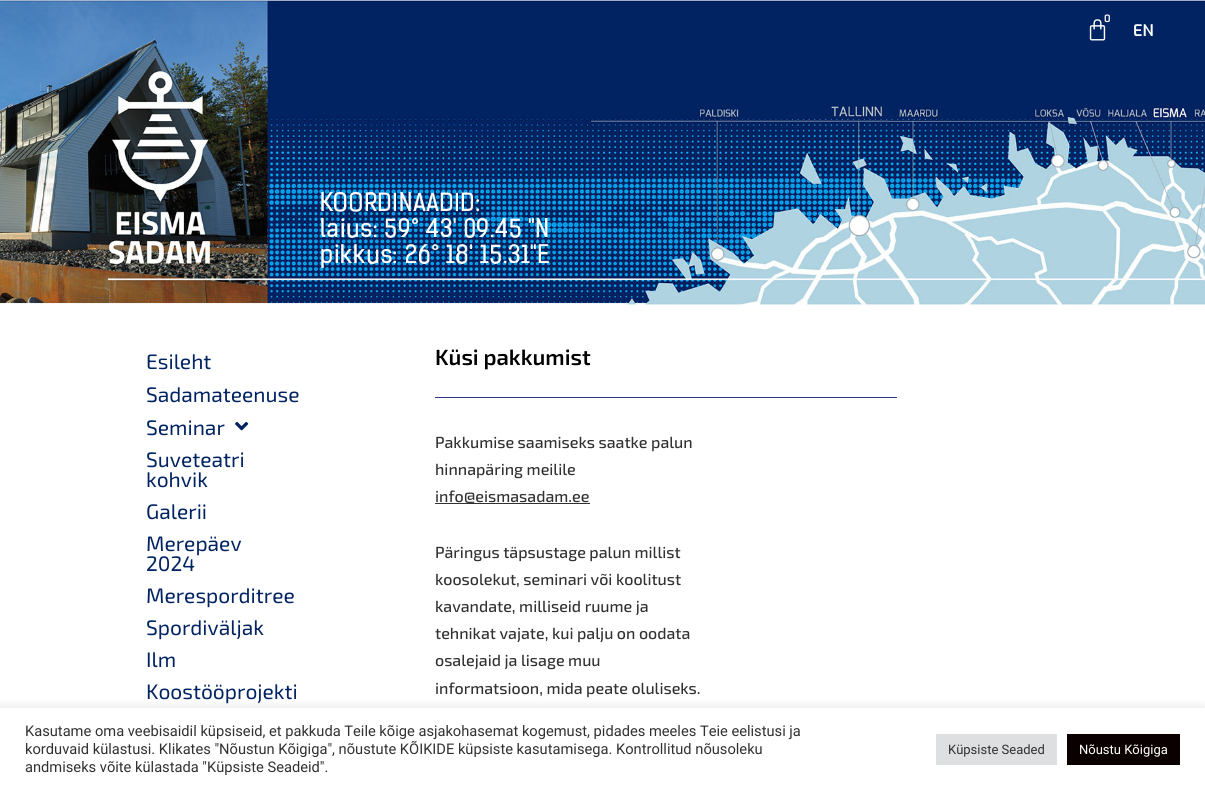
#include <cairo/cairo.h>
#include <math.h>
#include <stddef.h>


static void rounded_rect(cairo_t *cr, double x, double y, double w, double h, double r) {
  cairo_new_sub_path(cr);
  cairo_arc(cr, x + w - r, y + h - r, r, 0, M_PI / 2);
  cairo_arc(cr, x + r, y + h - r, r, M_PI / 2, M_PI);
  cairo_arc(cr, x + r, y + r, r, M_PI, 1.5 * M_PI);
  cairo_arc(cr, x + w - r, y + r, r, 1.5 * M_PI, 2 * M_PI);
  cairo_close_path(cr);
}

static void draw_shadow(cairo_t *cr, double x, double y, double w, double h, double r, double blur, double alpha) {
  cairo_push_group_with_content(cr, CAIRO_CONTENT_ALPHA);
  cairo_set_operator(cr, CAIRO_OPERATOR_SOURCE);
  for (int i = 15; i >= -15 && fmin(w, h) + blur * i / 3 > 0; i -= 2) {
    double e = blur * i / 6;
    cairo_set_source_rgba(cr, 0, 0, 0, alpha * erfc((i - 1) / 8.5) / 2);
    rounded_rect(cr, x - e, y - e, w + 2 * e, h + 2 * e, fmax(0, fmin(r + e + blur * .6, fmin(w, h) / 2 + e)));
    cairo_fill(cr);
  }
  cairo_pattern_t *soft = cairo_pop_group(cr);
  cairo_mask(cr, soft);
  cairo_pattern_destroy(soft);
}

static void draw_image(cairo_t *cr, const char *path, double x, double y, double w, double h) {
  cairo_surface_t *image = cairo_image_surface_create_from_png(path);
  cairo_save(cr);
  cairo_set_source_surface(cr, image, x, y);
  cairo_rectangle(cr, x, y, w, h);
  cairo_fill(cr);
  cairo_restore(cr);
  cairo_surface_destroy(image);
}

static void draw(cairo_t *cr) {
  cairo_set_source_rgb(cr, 1, 1, 1);
  cairo_paint(cr);
  draw_image(cr, "images/1.png", 0, 0, 1205, 305);
  draw_image(cr, "images/2.png", 1089, 19, 17, 22);
  draw_image(cr, "images/3.png", 235, 421, 14, 10);
  cairo_set_source_rgb(cr, 45 / 255.0, 55 / 255.0, 140 / 255.0);
  cairo_rectangle(cr, 435, 397, 462, 1);
  cairo_fill(cr);
  cairo_set_source_rgb(cr, 49 / 255.0, 49 / 255.0, 49 / 255.0);
  cairo_rectangle(cr, 435, 503, 155, 1);
  cairo_fill(cr);
  cairo_set_source_rgb(cr, 172 / 255.0, 171 / 255.0, 171 / 255.0);
  draw_shadow(cr, 0, 707, 1205, 82, 0, 5, 0.3);
  cairo_set_source_rgb(cr, 1, 1, 1);
  cairo_rectangle(cr, 0, 708, 1205, 82);
  cairo_fill(cr);
  cairo_set_source_rgb(cr, 222 / 255.0, 223 / 255.0, 224 / 255.0);
  cairo_rectangle(cr, 936, 734, 121, 31);
  cairo_fill(cr);
  cairo_set_source_rgb(cr, 10 / 255.0, 0, 0);
  cairo_rectangle(cr, 1067, 734, 113, 31);
  cairo_fill(cr);
  cairo_select_font_face(cr, "Exo SemiBold", CAIRO_FONT_SLANT_NORMAL, CAIRO_FONT_WEIGHT_NORMAL);
  cairo_set_font_size(cr, 10);
  cairo_set_source_rgb(cr, 1, 1, 1);
  cairo_move_to(cr, 1104, 22);
  cairo_show_text(cr, "0");
  cairo_set_font_size(cr, 16);
  cairo_move_to(cr, 1133, 36);
  cairo_show_text(cr, "EN");
  cairo_select_font_face(cr, "Exo 2", CAIRO_FONT_SLANT_NORMAL, CAIRO_FONT_WEIGHT_NORMAL);
  cairo_set_font_size(cr, 21);
  cairo_set_source_rgb(cr, 1 / 255.0, 35 / 255.0, 98 / 255.0);
  cairo_move_to(cr, 146, 369);
  cairo_show_text(cr, "Esileht");
  cairo_move_to(cr, 146, 402);
  cairo_show_text(cr, "Sadamateenuse");
  cairo_move_to(cr, 146, 435);
  cairo_show_text(cr, "Seminar");
  cairo_move_to(cr, 146, 467);
  cairo_show_text(cr, "Suveteatri");
  cairo_move_to(cr, 146, 487);
  cairo_show_text(cr, "kohvik");
  cairo_move_to(cr, 146, 519);
  cairo_show_text(cr, "Galerii");
  cairo_move_to(cr, 146, 551);
  cairo_show_text(cr, "Merepäev");
  cairo_move_to(cr, 146, 571);
  cairo_show_text(cr, "2024");
  cairo_move_to(cr, 146, 603);
  cairo_show_text(cr, "Meresporditree");
  cairo_move_to(cr, 146, 635);
  cairo_show_text(cr, "Spordiväljak");
  cairo_move_to(cr, 146, 667);
  cairo_show_text(cr, "Ilm");
  cairo_move_to(cr, 146, 699);
  cairo_show_text(cr, "Koostööprojekti");
  cairo_select_font_face(cr, "Exo 2 SemiBold", CAIRO_FONT_SLANT_NORMAL, CAIRO_FONT_WEIGHT_NORMAL);
  cairo_set_font_size(cr, 22);
  cairo_set_source_rgb(cr, 0, 0, 0);
  cairo_move_to(cr, 435, 365);
  cairo_show_text(cr, "Küsi pakkumist");
  cairo_select_font_face(cr, "Exo 2 Medium", CAIRO_FONT_SLANT_NORMAL, CAIRO_FONT_WEIGHT_NORMAL);
  cairo_set_font_size(cr, 16);
  cairo_set_source_rgb(cr, 49 / 255.0, 49 / 255.0, 49 / 255.0);
  cairo_move_to(cr, 435, 448);
  cairo_show_text(cr, "Pakkumise saamiseks saatke palun");
  cairo_move_to(cr, 435, 475);
  cairo_show_text(cr, "hinnapäring meilile");
  cairo_move_to(cr, 435, 502);
  cairo_show_text(cr, "info@eismasadam.ee");
  cairo_move_to(cr, 435, 558);
  cairo_show_text(cr, "Päringus täpsustage palun millist");
  cairo_move_to(cr, 435, 585);
  cairo_show_text(cr, "koosolekut, seminari või koolitust");
  cairo_move_to(cr, 435, 612);
  cairo_show_text(cr, "kavandate, milliseid ruume ja");
  cairo_move_to(cr, 435, 639);
  cairo_show_text(cr, "tehnikat vajate, kui palju on oodata");
  cairo_move_to(cr, 435, 666);
  cairo_show_text(cr, "osalejaid ja lisage muu");
  cairo_move_to(cr, 435, 694);
  cairo_show_text(cr, "informatsioon, mida peate oluliseks.");
  cairo_select_font_face(cr, "Roboto", CAIRO_FONT_SLANT_NORMAL, CAIRO_FONT_WEIGHT_NORMAL);
  cairo_set_font_size(cr, 14.67);
  cairo_move_to(cr, 25, 736);
  cairo_show_text(cr, "Kasutame oma veebisaidil küpsiseid, et pakkuda Teile kõige asjakohasemat kogemust, pidades meeles Teie eelistusi ja");
  cairo_move_to(cr, 25, 754);
  cairo_show_text(cr, "korduvaid külastusi. Klikates \"Nõustun Kõigiga\", nõustute KÕIKIDE küpsiste kasutamisega. Kontrollitud nõusoleku");
  cairo_move_to(cr, 25, 772);
  cairo_show_text(cr, "andmiseks võite külastada \"Küpsiste Seadeid\".");
  cairo_set_font_size(cr, 13);
  cairo_move_to(cr, 948, 754);
  cairo_show_text(cr, "Küpsiste Seaded");
  cairo_set_source_rgb(cr, 1, 1, 1);
  cairo_move_to(cr, 1079, 754);
  cairo_show_text(cr, "Nõustu Kõigiga");
}

int main(void) {
  cairo_surface_t *surface = cairo_image_surface_create(CAIRO_FORMAT_RGB24, 1205, 790);
  cairo_t *cr = cairo_create(surface);
  cairo_font_options_t *options = cairo_font_options_create();
  cairo_font_options_set_hint_metrics(options, CAIRO_HINT_METRICS_OFF);
  cairo_font_options_set_hint_style(options, CAIRO_HINT_STYLE_NONE);
  cairo_set_font_options(cr, options);
  cairo_set_miter_limit(cr, 4);
  draw(cr);
  cairo_surface_write_to_png(surface, "out.png");
  cairo_font_options_destroy(options);
  cairo_destroy(cr);
  cairo_surface_destroy(surface);
  return 0;
}
